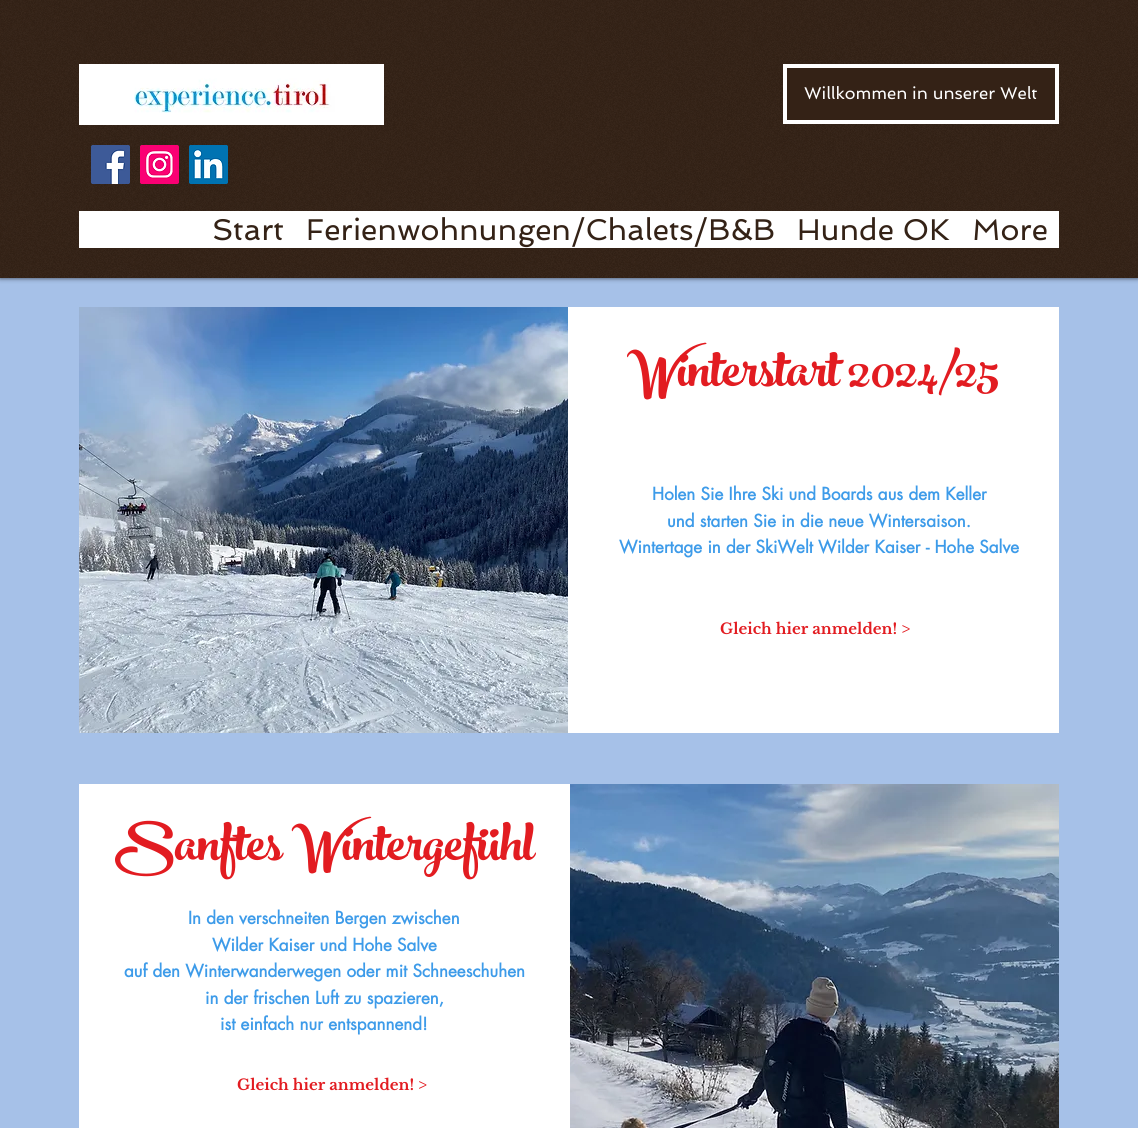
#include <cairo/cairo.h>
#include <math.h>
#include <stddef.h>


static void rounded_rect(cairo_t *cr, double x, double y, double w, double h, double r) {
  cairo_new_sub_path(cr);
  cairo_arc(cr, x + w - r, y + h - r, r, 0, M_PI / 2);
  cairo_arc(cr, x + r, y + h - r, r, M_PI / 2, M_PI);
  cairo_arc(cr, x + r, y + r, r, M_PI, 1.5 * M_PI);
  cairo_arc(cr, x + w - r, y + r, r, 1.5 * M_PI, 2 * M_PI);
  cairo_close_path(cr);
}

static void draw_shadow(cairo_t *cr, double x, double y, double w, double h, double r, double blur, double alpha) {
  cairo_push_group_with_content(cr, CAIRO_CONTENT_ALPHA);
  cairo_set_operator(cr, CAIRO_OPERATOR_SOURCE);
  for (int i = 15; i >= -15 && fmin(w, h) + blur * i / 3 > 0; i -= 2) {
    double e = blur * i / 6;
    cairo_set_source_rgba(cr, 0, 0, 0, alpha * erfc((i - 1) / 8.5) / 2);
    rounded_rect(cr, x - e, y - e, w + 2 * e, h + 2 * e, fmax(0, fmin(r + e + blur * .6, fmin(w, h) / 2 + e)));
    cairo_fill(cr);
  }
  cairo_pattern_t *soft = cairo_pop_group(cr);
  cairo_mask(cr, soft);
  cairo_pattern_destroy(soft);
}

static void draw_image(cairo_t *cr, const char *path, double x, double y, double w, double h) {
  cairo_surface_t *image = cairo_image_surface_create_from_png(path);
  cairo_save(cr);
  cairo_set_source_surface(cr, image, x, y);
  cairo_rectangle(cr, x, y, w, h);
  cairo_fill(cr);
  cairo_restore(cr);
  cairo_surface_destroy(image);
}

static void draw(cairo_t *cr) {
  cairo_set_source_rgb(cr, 166 / 255.0, 193 / 255.0, 232 / 255.0);
  cairo_paint(cr);
  cairo_set_source_rgb(cr, 0, 0, 0);
  draw_shadow(cr, 0, 0, 1138, 278, 0, 2.5, 0.7);
  cairo_set_source_rgb(cr, 52 / 255.0, 34 / 255.0, 22 / 255.0);
  cairo_rectangle(cr, 0, 0, 1138, 278);
  cairo_fill(cr);
  draw_image(cr, "images/1.png", 0, 0, 1138, 278);
  draw_image(cr, "images/2.png", 79, 64, 305, 61);
  cairo_rectangle(cr, 785, 66, 272, 56);
  cairo_fill_preserve(cr);
  cairo_set_source_rgb(cr, 1, 1, 1);
  cairo_set_line_width(cr, 4);
  cairo_stroke(cr);
  draw_image(cr, "images/3.png", 91, 145, 39, 39);
  draw_image(cr, "images/4.png", 140, 145, 39, 39);
  draw_image(cr, "images/5.png", 189, 145, 39, 39);
  cairo_rectangle(cr, 79, 211, 980, 37);
  cairo_fill(cr);
  cairo_set_source_rgb(cr, 52 / 255.0, 34 / 255.0, 22 / 255.0);
  cairo_rectangle(cr, 79, 248, 980, 1);
  cairo_fill(cr);
  draw_image(cr, "images/6.png", 79, 307, 489, 426);
  cairo_set_source_rgb(cr, 1, 1, 1);
  cairo_rectangle(cr, 568, 307, 491, 426);
  cairo_fill(cr);
  cairo_rectangle(cr, 79, 784, 491, 344);
  cairo_fill(cr);
  draw_image(cr, "images/7.png", 570, 784, 489, 344);
  cairo_select_font_face(cr, "Spinnaker", CAIRO_FONT_SLANT_NORMAL, CAIRO_FONT_WEIGHT_NORMAL);
  cairo_set_font_size(cr, 17);
  cairo_move_to(cr, 804, 99);
  cairo_show_text(cr, "Willkommen in unserer Welt");
  cairo_set_font_size(cr, 30);
  cairo_set_source_rgb(cr, 52 / 255.0, 34 / 255.0, 22 / 255.0);
  cairo_move_to(cr, 212, 240);
  cairo_show_text(cr, "Start");
  cairo_move_to(cr, 306, 240);
  cairo_show_text(cr, "Ferienwohnungen/Chalets/B&B");
  cairo_move_to(cr, 797, 240);
  cairo_show_text(cr, "Hunde OK");
  cairo_move_to(cr, 972, 240);
  cairo_show_text(cr, "More");
  cairo_select_font_face(cr, "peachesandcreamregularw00", CAIRO_FONT_SLANT_NORMAL, CAIRO_FONT_WEIGHT_NORMAL);
  cairo_set_font_size(cr, 80);
  cairo_set_source_rgb(cr, 226 / 255.0, 28 / 255.0, 33 / 255.0);
  cairo_move_to(cr, 627, 386);
  cairo_show_text(cr, "Winterstart 2024/25");
  cairo_select_font_face(cr, "futura", CAIRO_FONT_SLANT_NORMAL, CAIRO_FONT_WEIGHT_BOLD);
  cairo_set_font_size(cr, 17);
  cairo_set_source_rgb(cr, 61 / 255.0, 155 / 255.0, 233 / 255.0);
  cairo_move_to(cr, 652, 500);
  cairo_show_text(cr, "Holen Sie Ihre Ski und Boards aus dem Keller");
  cairo_move_to(cr, 667, 527);
  cairo_show_text(cr, "und starten Sie in die neue Wintersaison.");
  cairo_move_to(cr, 619, 553);
  cairo_show_text(cr, "Wintertage in der SkiWelt Wilder Kaiser - Hohe Salve");
  cairo_select_font_face(cr, "Libre Baskerville", CAIRO_FONT_SLANT_NORMAL, CAIRO_FONT_WEIGHT_BOLD);
  cairo_set_font_size(cr, 15);
  cairo_set_source_rgb(cr, 226 / 255.0, 28 / 255.0, 33 / 255.0);
  cairo_move_to(cr, 720, 634);
  cairo_show_text(cr, "Gleich hier anmelden! >");
  cairo_select_font_face(cr, "peachesandcreamregularw00", CAIRO_FONT_SLANT_NORMAL, CAIRO_FONT_WEIGHT_NORMAL);
  cairo_set_font_size(cr, 80);
  cairo_move_to(cr, 115, 860);
  cairo_show_text(cr, "Sanftes Wintergefühl");
  cairo_select_font_face(cr, "futura", CAIRO_FONT_SLANT_NORMAL, CAIRO_FONT_WEIGHT_BOLD);
  cairo_set_font_size(cr, 17);
  cairo_set_source_rgb(cr, 61 / 255.0, 155 / 255.0, 233 / 255.0);
  cairo_move_to(cr, 188, 924);
  cairo_show_text(cr, "In den verschneiten Bergen zwischen");
  cairo_move_to(cr, 212, 951);
  cairo_show_text(cr, "Wilder Kaiser und Hohe Salve");
  cairo_move_to(cr, 124, 977);
  cairo_show_text(cr, "auf den Winterwanderwegen oder mit Schneeschuhen");
  cairo_move_to(cr, 205, 1004);
  cairo_show_text(cr, "in der frischen Luft zu spazieren,");
  cairo_move_to(cr, 220, 1030);
  cairo_show_text(cr, "ist einfach nur entspannend!");
  cairo_select_font_face(cr, "Libre Baskerville", CAIRO_FONT_SLANT_NORMAL, CAIRO_FONT_WEIGHT_BOLD);
  cairo_set_font_size(cr, 15);
  cairo_set_source_rgb(cr, 226 / 255.0, 28 / 255.0, 33 / 255.0);
  cairo_move_to(cr, 237, 1090);
  cairo_show_text(cr, "Gleich hier anmelden! >");
}

int main(void) {
  cairo_surface_t *surface = cairo_image_surface_create(CAIRO_FORMAT_RGB24, 1138, 1128);
  cairo_t *cr = cairo_create(surface);
  cairo_font_options_t *options = cairo_font_options_create();
  cairo_font_options_set_hint_metrics(options, CAIRO_HINT_METRICS_OFF);
  cairo_font_options_set_hint_style(options, CAIRO_HINT_STYLE_NONE);
  cairo_set_font_options(cr, options);
  cairo_set_miter_limit(cr, 4);
  draw(cr);
  cairo_surface_write_to_png(surface, "out.png");
  cairo_font_options_destroy(options);
  cairo_destroy(cr);
  cairo_surface_destroy(surface);
  return 0;
}
